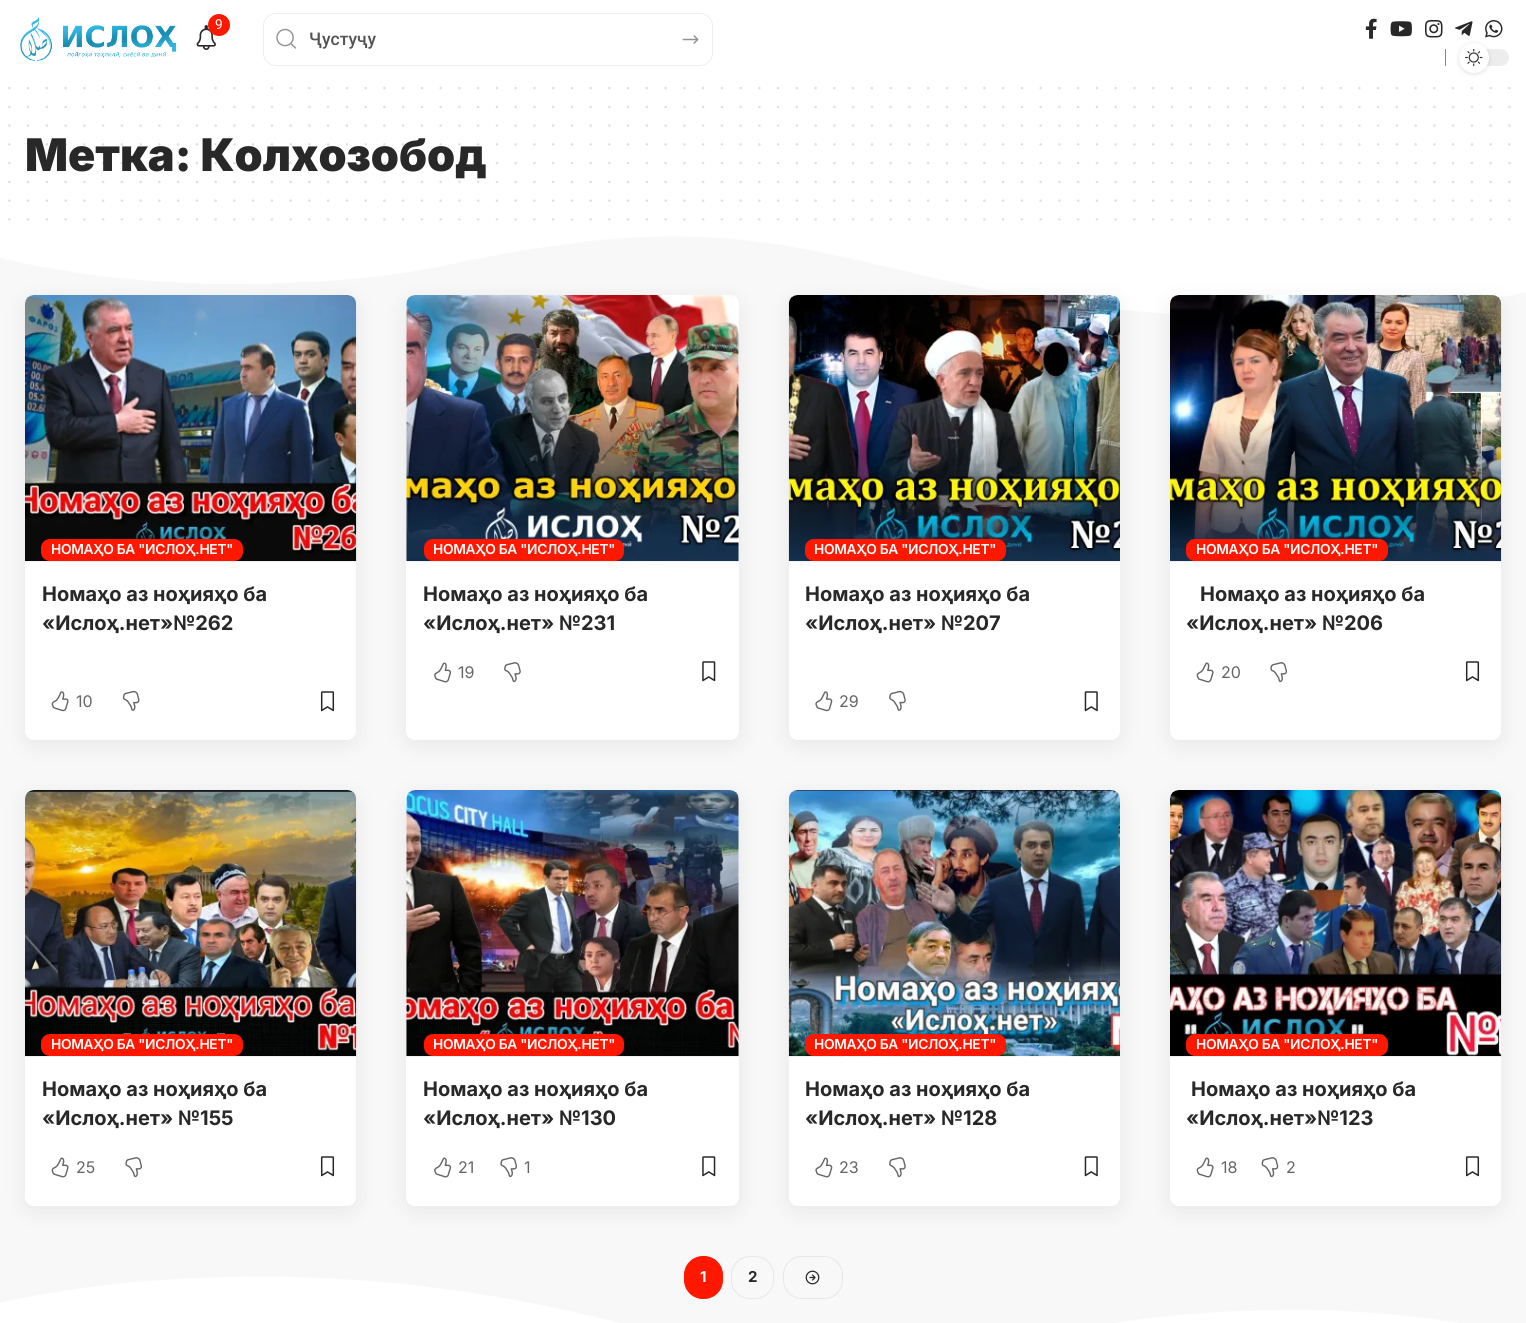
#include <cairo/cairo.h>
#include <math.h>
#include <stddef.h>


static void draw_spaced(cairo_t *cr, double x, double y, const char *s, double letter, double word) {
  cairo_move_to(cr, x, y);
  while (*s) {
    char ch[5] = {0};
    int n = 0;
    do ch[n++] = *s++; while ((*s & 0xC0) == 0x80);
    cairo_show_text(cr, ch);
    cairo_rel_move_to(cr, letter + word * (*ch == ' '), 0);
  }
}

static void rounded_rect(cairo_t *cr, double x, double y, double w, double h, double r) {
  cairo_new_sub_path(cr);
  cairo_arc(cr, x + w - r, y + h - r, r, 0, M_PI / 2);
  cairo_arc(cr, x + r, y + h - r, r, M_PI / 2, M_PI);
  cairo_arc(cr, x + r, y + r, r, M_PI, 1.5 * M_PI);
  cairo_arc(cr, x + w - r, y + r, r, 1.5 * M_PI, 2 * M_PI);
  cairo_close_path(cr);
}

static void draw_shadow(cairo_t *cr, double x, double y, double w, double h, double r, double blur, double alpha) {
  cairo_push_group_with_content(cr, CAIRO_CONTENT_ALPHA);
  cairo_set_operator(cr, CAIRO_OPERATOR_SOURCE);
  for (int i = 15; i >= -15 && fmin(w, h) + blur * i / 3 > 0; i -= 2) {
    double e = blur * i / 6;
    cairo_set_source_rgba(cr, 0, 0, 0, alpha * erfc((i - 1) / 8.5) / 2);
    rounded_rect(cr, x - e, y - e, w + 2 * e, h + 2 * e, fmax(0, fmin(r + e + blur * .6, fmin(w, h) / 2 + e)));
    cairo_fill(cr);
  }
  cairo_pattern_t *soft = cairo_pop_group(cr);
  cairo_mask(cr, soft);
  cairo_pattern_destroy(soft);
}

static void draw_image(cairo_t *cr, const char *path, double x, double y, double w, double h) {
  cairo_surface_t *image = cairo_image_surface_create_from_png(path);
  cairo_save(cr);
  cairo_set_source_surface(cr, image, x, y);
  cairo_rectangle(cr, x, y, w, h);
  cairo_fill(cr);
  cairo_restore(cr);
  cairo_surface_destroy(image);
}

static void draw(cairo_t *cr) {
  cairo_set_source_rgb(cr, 1, 1, 1);
  cairo_paint(cr);
  draw_image(cr, "images/1.png", 20, 17, 157, 44);
  draw_image(cr, "images/2.png", 196, 25, 20, 25);
  cairo_set_source_rgb(cr, 1, 24 / 255.0, 0);
  cairo_arc(cr, 219, 25, 11, 0, 2 * M_PI);
  cairo_fill(cr);
  rounded_rect(cr, 263.5, 13.5, 449, 52, 12.5);
  cairo_set_source_rgb(cr, 237 / 255.0, 237 / 255.0, 237 / 255.0);
  cairo_set_line_width(cr, 1);
  cairo_stroke(cr);
  draw_image(cr, "images/3.png", 276, 28, 21, 21);
  draw_image(cr, "images/4.png", 682, 35, 17, 9);
  draw_image(cr, "images/5.png", 1365, 18, 12, 21);
  draw_image(cr, "images/6.png", 1390, 21, 22, 16);
  draw_image(cr, "images/7.png", 1425, 20, 18, 18);
  draw_image(cr, "images/8.png", 1455, 21, 18, 15);
  draw_image(cr, "images/9.png", 1485, 20, 18, 18);
  cairo_set_source_rgb(cr, 136 / 255.0, 136 / 255.0, 136 / 255.0);
  cairo_rectangle(cr, 1445, 49, 1, 17);
  cairo_fill(cr);
  cairo_set_source_rgb(cr, 237 / 255.0, 237 / 255.0, 237 / 255.0);
  rounded_rect(cr, 1459, 49, 50, 17, 8.5);
  cairo_fill(cr);
  cairo_set_source_rgb(cr, 0, 0, 0);
  draw_shadow(cr, 1459, 44, 30, 30, 15, 2.5, 0.12);
  cairo_set_source_rgb(cr, 1, 1, 1);
  cairo_arc(cr, 1474, 58, 15, 0, 2 * M_PI);
  cairo_fill(cr);
  draw_image(cr, "images/10.png", 1465, 49, 18, 17);
  cairo_new_path(cr);
  cairo_move_to(cr, 9.4, 88.1);
  cairo_line_to(cr, 1509.6, 88.1);
  cairo_set_source_rgb(cr, 223 / 255.0, 223 / 255.0, 223 / 255.0);
  cairo_set_line_width(cr, 2.5);
  cairo_set_line_cap(cr, CAIRO_LINE_CAP_ROUND);
  cairo_set_dash(cr, (double[]){0, 18.75}, 2, 0);
  cairo_stroke(cr);
  cairo_new_path(cr);
  cairo_move_to(cr, 9.4, 106.9);
  cairo_line_to(cr, 1509.6, 106.9);
  cairo_stroke(cr);
  cairo_new_path(cr);
  cairo_move_to(cr, 9.4, 125.6);
  cairo_line_to(cr, 1509.6, 125.6);
  cairo_stroke(cr);
  cairo_new_path(cr);
  cairo_move_to(cr, 9.4, 181.9);
  cairo_line_to(cr, 1509.6, 181.9);
  cairo_stroke(cr);
  cairo_new_path(cr);
  cairo_move_to(cr, 9.4, 200.6);
  cairo_line_to(cr, 1509.6, 200.6);
  cairo_stroke(cr);
  cairo_new_path(cr);
  cairo_move_to(cr, 9.4, 219.4);
  cairo_line_to(cr, 1509.6, 219.4);
  cairo_stroke(cr);
  cairo_set_source_rgb(cr, 248 / 255.0, 248 / 255.0, 248 / 255.0);
  cairo_rectangle(cr, 0, 236, 1526, 1087);
  cairo_fill(cr);
  cairo_set_source_rgb(cr, 1, 1, 1);
  cairo_new_path(cr);
  cairo_move_to(cr, 644, 237);
  cairo_curve_to(cr, 679, 235, 723, 237, 760, 242);
  cairo_curve_to(cr, 796, 246, 868, 262, 913, 273);
  cairo_curve_to(cr, 1029, 301, 1118, 312, 1208, 316);
  cairo_curve_to(cr, 1244, 318, 1282, 319, 1366, 314);
  cairo_curve_to(cr, 1449, 309, 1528, 292, 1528, 292);
  cairo_line_to(cr, 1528, 231);
  cairo_line_to(cr, 0, 231);
  cairo_line_to(cr, 0, 258);
  cairo_curve_to(cr, 0, 258, 110, 286, 242, 284);
  cairo_curve_to(cr, 302, 284, 384, 279, 447, 265);
  cairo_curve_to(cr, 479, 258, 526, 249, 568, 244);
  cairo_curve_to(cr, 610, 238, 629, 238, 644, 237);
  cairo_close_path(cr);
  cairo_fill(cr);
  cairo_set_source_rgb(cr, 0, 0, 0);
  draw_shadow(cr, 25, 300, 331, 445, 9, 12.5, 0.07);
  cairo_set_source_rgb(cr, 1, 1, 1);
  rounded_rect(cr, 25, 295, 331, 445, 9);
  cairo_fill(cr);
  draw_image(cr, "images/11.png", 25, 295, 332, 267);
  cairo_set_source_rgb(cr, 1, 24 / 255.0, 0);
  rounded_rect(cr, 41, 539, 202, 22, 9);
  cairo_fill(cr);
  draw_image(cr, "images/12.png", 51, 691, 18, 21);
  draw_image(cr, "images/13.png", 122, 690, 18, 21);
  draw_image(cr, "images/14.png", 320, 691, 15, 21);
  cairo_set_source_rgb(cr, 0, 0, 0);
  draw_shadow(cr, 406, 300, 333, 445, 9, 12.5, 0.07);
  cairo_set_source_rgb(cr, 1, 1, 1);
  rounded_rect(cr, 406, 295, 333, 445, 9);
  cairo_fill(cr);
  draw_image(cr, "images/15.png", 406, 295, 333, 267);
  cairo_set_source_rgb(cr, 1, 24 / 255.0, 0);
  rounded_rect(cr, 424, 539, 200, 22, 9);
  cairo_fill(cr);
  draw_image(cr, "images/16.png", 434, 662, 18, 21);
  draw_image(cr, "images/17.png", 504, 662, 17, 21);
  draw_image(cr, "images/18.png", 702, 661, 14, 21);
  cairo_set_source_rgb(cr, 0, 0, 0);
  draw_shadow(cr, 789, 300, 331, 445, 9, 12.5, 0.07);
  cairo_set_source_rgb(cr, 1, 1, 1);
  rounded_rect(cr, 789, 295, 331, 445, 9);
  cairo_fill(cr);
  draw_image(cr, "images/19.png", 788, 295, 332, 267);
  cairo_set_source_rgb(cr, 1, 24 / 255.0, 0);
  rounded_rect(cr, 805, 539, 201, 22, 9);
  cairo_fill(cr);
  draw_image(cr, "images/20.png", 815, 691, 18, 21);
  draw_image(cr, "images/21.png", 889, 690, 17, 21);
  draw_image(cr, "images/22.png", 1084, 691, 14, 21);
  cairo_set_source_rgb(cr, 0, 0, 0);
  draw_shadow(cr, 1170, 300, 331, 445, 9, 12.5, 0.07);
  cairo_set_source_rgb(cr, 1, 1, 1);
  rounded_rect(cr, 1170, 295, 331, 445, 9);
  cairo_fill(cr);
  draw_image(cr, "images/23.png", 1170, 295, 332, 267);
  cairo_set_source_rgb(cr, 1, 24 / 255.0, 0);
  rounded_rect(cr, 1186, 539, 202, 22, 9);
  cairo_fill(cr);
  draw_image(cr, "images/24.png", 1196, 662, 18, 21);
  draw_image(cr, "images/25.png", 1270, 662, 18, 21);
  draw_image(cr, "images/14.png", 1465, 661, 15, 21);
  cairo_set_source_rgb(cr, 0, 0, 0);
  draw_shadow(cr, 25, 795, 331, 416, 9, 12.5, 0.07);
  cairo_set_source_rgb(cr, 1, 1, 1);
  rounded_rect(cr, 25, 790, 331, 416, 9);
  cairo_fill(cr);
  draw_image(cr, "images/26.png", 25, 790, 332, 267);
  cairo_set_source_rgb(cr, 1, 24 / 255.0, 0);
  rounded_rect(cr, 41, 1034, 202, 22, 9);
  cairo_fill(cr);
  draw_image(cr, "images/24.png", 51, 1157, 18, 21);
  draw_image(cr, "images/25.png", 125, 1157, 18, 21);
  draw_image(cr, "images/14.png", 320, 1156, 15, 21);
  cairo_set_source_rgb(cr, 0, 0, 0);
  draw_shadow(cr, 406, 795, 333, 416, 9, 12.5, 0.07);
  cairo_set_source_rgb(cr, 1, 1, 1);
  rounded_rect(cr, 406, 790, 333, 416, 9);
  cairo_fill(cr);
  draw_image(cr, "images/27.png", 406, 790, 333, 267);
  cairo_set_source_rgb(cr, 1, 24 / 255.0, 0);
  rounded_rect(cr, 424, 1034, 200, 22, 9);
  cairo_fill(cr);
  draw_image(cr, "images/16.png", 434, 1157, 18, 21);
  draw_image(cr, "images/25.png", 500, 1157, 18, 21);
  draw_image(cr, "images/18.png", 702, 1156, 14, 21);
  cairo_set_source_rgb(cr, 0, 0, 0);
  draw_shadow(cr, 789, 795, 331, 416, 9, 12.5, 0.07);
  cairo_set_source_rgb(cr, 1, 1, 1);
  rounded_rect(cr, 789, 790, 331, 416, 9);
  cairo_fill(cr);
  draw_image(cr, "images/28.png", 788, 790, 332, 267);
  cairo_set_source_rgb(cr, 1, 24 / 255.0, 0);
  rounded_rect(cr, 805, 1034, 201, 22, 9);
  cairo_fill(cr);
  draw_image(cr, "images/29.png", 815, 1157, 18, 21);
  draw_image(cr, "images/17.png", 889, 1157, 17, 21);
  draw_image(cr, "images/22.png", 1084, 1156, 14, 21);
  cairo_set_source_rgb(cr, 0, 0, 0);
  draw_shadow(cr, 1170, 795, 331, 416, 9, 12.5, 0.07);
  cairo_set_source_rgb(cr, 1, 1, 1);
  rounded_rect(cr, 1170, 790, 331, 416, 9);
  cairo_fill(cr);
  draw_image(cr, "images/30.png", 1170, 790, 332, 267);
  cairo_set_source_rgb(cr, 1, 24 / 255.0, 0);
  rounded_rect(cr, 1186, 1034, 202, 22, 9);
  cairo_fill(cr);
  draw_image(cr, "images/24.png", 1196, 1157, 18, 21);
  draw_image(cr, "images/31.png", 1261, 1157, 18, 21);
  draw_image(cr, "images/14.png", 1465, 1156, 15, 21);
  cairo_set_source_rgb(cr, 1, 1, 1);
  cairo_new_path(cr);
  cairo_move_to(cr, 882, 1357);
  cairo_curve_to(cr, 847, 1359, 803, 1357, 766, 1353);
  cairo_curve_to(cr, 730, 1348, 658, 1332, 613, 1321);
  cairo_curve_to(cr, 497, 1293, 409, 1282, 319, 1278);
  cairo_curve_to(cr, 283, 1276, 244, 1275, 161, 1280);
  cairo_curve_to(cr, 77, 1285, -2, 1303, -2, 1303);
  cairo_line_to(cr, -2, 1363);
  cairo_line_to(cr, 1526, 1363);
  cairo_line_to(cr, 1526, 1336);
  cairo_curve_to(cr, 1526, 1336, 1416, 1308, 1284, 1310);
  cairo_curve_to(cr, 1225, 1310, 1143, 1316, 1080, 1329);
  cairo_curve_to(cr, 1047, 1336, 1000, 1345, 958, 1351);
  cairo_curve_to(cr, 916, 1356, 898, 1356, 882, 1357);
  cairo_close_path(cr);
  cairo_fill(cr);
  cairo_set_source_rgb(cr, 1, 24 / 255.0, 0);
  rounded_rect(cr, 684.5, 1256.5, 38, 42, 18.5);
  cairo_fill_preserve(cr);
  cairo_set_line_width(cr, 1);
  cairo_set_line_cap(cr, CAIRO_LINE_CAP_BUTT);
  cairo_set_dash(cr, NULL, 0, 0);
  cairo_stroke(cr);
  rounded_rect(cr, 731.5, 1256.5, 42, 42, 18.5);
  cairo_set_source_rgb(cr, 231 / 255.0, 231 / 255.0, 231 / 255.0);
  cairo_stroke(cr);
  rounded_rect(cr, 783.5, 1256.5, 59, 42, 18.5);
  cairo_stroke(cr);
  draw_image(cr, "images/32.png", 805, 1270, 15, 15);
  cairo_select_font_face(cr, "Roboto", CAIRO_FONT_SLANT_NORMAL, CAIRO_FONT_WEIGHT_NORMAL);
  cairo_set_font_size(cr, 13.75);
  cairo_set_source_rgb(cr, 1, 1, 1);
  cairo_move_to(cr, 215, 29);
  cairo_show_text(cr, "9");
  cairo_select_font_face(cr, "Roboto Medium", CAIRO_FONT_SLANT_NORMAL, CAIRO_FONT_WEIGHT_NORMAL);
  cairo_set_font_size(cr, 17.5);
  cairo_set_source_rgb(cr, 83 / 255.0, 83 / 255.0, 83 / 255.0);
  cairo_move_to(cr, 309, 45);
  cairo_show_text(cr, "Ҷустуҷу");
  cairo_select_font_face(cr, "Inter Black", CAIRO_FONT_SLANT_NORMAL, CAIRO_FONT_WEIGHT_NORMAL);
  cairo_set_font_size(cr, 45);
  cairo_set_source_rgb(cr, 40 / 255.0, 40 / 255.0, 40 / 255.0);
  cairo_move_to(cr, 25, 171);
  cairo_show_text(cr, "Метка: Колхозобод");
  cairo_new_path(cr);
  cairo_move_to(cr, 9.4, 163.1);
  cairo_line_to(cr, 1509.6, 163.1);
  cairo_set_source_rgba(cr, 40 / 255.0, 40 / 255.0, 40 / 255.0, 0.15);
  cairo_set_line_width(cr, 2.5);
  cairo_set_line_cap(cr, CAIRO_LINE_CAP_ROUND);
  cairo_set_dash(cr, (double[]){0, 18.75}, 2, 0);
  cairo_stroke(cr);
  cairo_new_path(cr);
  cairo_move_to(cr, 9.4, 144.4);
  cairo_line_to(cr, 1509.6, 144.4);
  cairo_stroke(cr);
  cairo_select_font_face(cr, "Inter SemiBold", CAIRO_FONT_SLANT_NORMAL, CAIRO_FONT_WEIGHT_NORMAL);
  cairo_set_font_size(cr, 13.75);
  cairo_set_source_rgb(cr, 1, 1, 1);
  draw_spaced(cr, 51, 554, "НОМАҲО БА \"ИСЛОҲ.НЕТ\"", -0.3, 0);
  cairo_select_font_face(cr, "Inter", CAIRO_FONT_SLANT_NORMAL, CAIRO_FONT_WEIGHT_BOLD);
  cairo_set_font_size(cr, 20);
  cairo_set_source_rgb(cr, 40 / 255.0, 40 / 255.0, 40 / 255.0);
  cairo_move_to(cr, 42, 601);
  cairo_show_text(cr, "Номаҳо аз ноҳияҳо ба");
  cairo_move_to(cr, 42, 630);
  cairo_show_text(cr, "«Ислоҳ.нет»№262");
  cairo_select_font_face(cr, "Inter", CAIRO_FONT_SLANT_NORMAL, CAIRO_FONT_WEIGHT_NORMAL);
  cairo_set_font_size(cr, 16);
  cairo_set_source_rgb(cr, 102 / 255.0, 102 / 255.0, 102 / 255.0);
  cairo_move_to(cr, 76, 707);
  cairo_show_text(cr, "10");
  cairo_select_font_face(cr, "Inter SemiBold", CAIRO_FONT_SLANT_NORMAL, CAIRO_FONT_WEIGHT_NORMAL);
  cairo_set_font_size(cr, 13.75);
  cairo_set_source_rgb(cr, 1, 1, 1);
  draw_spaced(cr, 433, 554, "НОМАҲО БА \"ИСЛОҲ.НЕТ\"", -0.3, 0);
  cairo_select_font_face(cr, "Inter", CAIRO_FONT_SLANT_NORMAL, CAIRO_FONT_WEIGHT_BOLD);
  cairo_set_font_size(cr, 20);
  cairo_set_source_rgb(cr, 40 / 255.0, 40 / 255.0, 40 / 255.0);
  cairo_move_to(cr, 423, 601);
  cairo_show_text(cr, "Номаҳо аз ноҳияҳо ба");
  cairo_move_to(cr, 423, 630);
  cairo_show_text(cr, "«Ислоҳ.нет» №231");
  cairo_select_font_face(cr, "Inter", CAIRO_FONT_SLANT_NORMAL, CAIRO_FONT_WEIGHT_NORMAL);
  cairo_set_font_size(cr, 16);
  cairo_set_source_rgb(cr, 102 / 255.0, 102 / 255.0, 102 / 255.0);
  cairo_move_to(cr, 458, 678);
  cairo_show_text(cr, "19");
  cairo_select_font_face(cr, "Inter SemiBold", CAIRO_FONT_SLANT_NORMAL, CAIRO_FONT_WEIGHT_NORMAL);
  cairo_set_font_size(cr, 13.75);
  cairo_set_source_rgb(cr, 1, 1, 1);
  draw_spaced(cr, 814, 554, "НОМАҲО БА \"ИСЛОҲ.НЕТ\"", -0.3, 0);
  cairo_select_font_face(cr, "Inter", CAIRO_FONT_SLANT_NORMAL, CAIRO_FONT_WEIGHT_BOLD);
  cairo_set_font_size(cr, 20);
  cairo_set_source_rgb(cr, 40 / 255.0, 40 / 255.0, 40 / 255.0);
  cairo_move_to(cr, 805, 601);
  cairo_show_text(cr, "Номаҳо аз ноҳияҳо ба");
  cairo_move_to(cr, 805, 630);
  cairo_show_text(cr, "«Ислоҳ.нет» №207");
  cairo_select_font_face(cr, "Inter", CAIRO_FONT_SLANT_NORMAL, CAIRO_FONT_WEIGHT_NORMAL);
  cairo_set_font_size(cr, 16);
  cairo_set_source_rgb(cr, 102 / 255.0, 102 / 255.0, 102 / 255.0);
  cairo_move_to(cr, 839, 707);
  cairo_show_text(cr, "29");
  cairo_select_font_face(cr, "Inter SemiBold", CAIRO_FONT_SLANT_NORMAL, CAIRO_FONT_WEIGHT_NORMAL);
  cairo_set_font_size(cr, 13.75);
  cairo_set_source_rgb(cr, 1, 1, 1);
  draw_spaced(cr, 1196, 554, "НОМАҲО БА \"ИСЛОҲ.НЕТ\"", -0.3, 0);
  cairo_select_font_face(cr, "Inter", CAIRO_FONT_SLANT_NORMAL, CAIRO_FONT_WEIGHT_BOLD);
  cairo_set_font_size(cr, 20);
  cairo_set_source_rgb(cr, 40 / 255.0, 40 / 255.0, 40 / 255.0);
  cairo_move_to(cr, 1200, 601);
  cairo_show_text(cr, "Номаҳо аз ноҳияҳо ба");
  cairo_move_to(cr, 1186, 630);
  cairo_show_text(cr, "«Ислоҳ.нет» №206");
  cairo_select_font_face(cr, "Inter", CAIRO_FONT_SLANT_NORMAL, CAIRO_FONT_WEIGHT_NORMAL);
  cairo_set_font_size(cr, 16);
  cairo_set_source_rgb(cr, 102 / 255.0, 102 / 255.0, 102 / 255.0);
  cairo_move_to(cr, 1221, 678);
  cairo_show_text(cr, "20");
  cairo_select_font_face(cr, "Inter SemiBold", CAIRO_FONT_SLANT_NORMAL, CAIRO_FONT_WEIGHT_NORMAL);
  cairo_set_font_size(cr, 13.75);
  cairo_set_source_rgb(cr, 1, 1, 1);
  draw_spaced(cr, 51, 1049, "НОМАҲО БА \"ИСЛОҲ.НЕТ\"", -0.3, 0);
  cairo_select_font_face(cr, "Inter", CAIRO_FONT_SLANT_NORMAL, CAIRO_FONT_WEIGHT_BOLD);
  cairo_set_font_size(cr, 20);
  cairo_set_source_rgb(cr, 40 / 255.0, 40 / 255.0, 40 / 255.0);
  cairo_move_to(cr, 42, 1096);
  cairo_show_text(cr, "Номаҳо аз ноҳияҳо ба");
  cairo_move_to(cr, 42, 1125);
  cairo_show_text(cr, "«Ислоҳ.нет» №155");
  cairo_select_font_face(cr, "Inter", CAIRO_FONT_SLANT_NORMAL, CAIRO_FONT_WEIGHT_NORMAL);
  cairo_set_font_size(cr, 16);
  cairo_set_source_rgb(cr, 102 / 255.0, 102 / 255.0, 102 / 255.0);
  cairo_move_to(cr, 76, 1173);
  cairo_show_text(cr, "25");
  cairo_select_font_face(cr, "Inter SemiBold", CAIRO_FONT_SLANT_NORMAL, CAIRO_FONT_WEIGHT_NORMAL);
  cairo_set_font_size(cr, 13.75);
  cairo_set_source_rgb(cr, 1, 1, 1);
  draw_spaced(cr, 433, 1049, "НОМАҲО БА \"ИСЛОҲ.НЕТ\"", -0.3, 0);
  cairo_select_font_face(cr, "Inter", CAIRO_FONT_SLANT_NORMAL, CAIRO_FONT_WEIGHT_BOLD);
  cairo_set_font_size(cr, 20);
  cairo_set_source_rgb(cr, 40 / 255.0, 40 / 255.0, 40 / 255.0);
  cairo_move_to(cr, 423, 1096);
  cairo_show_text(cr, "Номаҳо аз ноҳияҳо ба");
  cairo_move_to(cr, 423, 1125);
  cairo_show_text(cr, "«Ислоҳ.нет» №130");
  cairo_select_font_face(cr, "Inter", CAIRO_FONT_SLANT_NORMAL, CAIRO_FONT_WEIGHT_NORMAL);
  cairo_set_font_size(cr, 16);
  cairo_set_source_rgb(cr, 102 / 255.0, 102 / 255.0, 102 / 255.0);
  cairo_move_to(cr, 458, 1173);
  cairo_show_text(cr, "21");
  cairo_move_to(cr, 524, 1173);
  cairo_show_text(cr, "1");
  cairo_select_font_face(cr, "Inter SemiBold", CAIRO_FONT_SLANT_NORMAL, CAIRO_FONT_WEIGHT_NORMAL);
  cairo_set_font_size(cr, 13.75);
  cairo_set_source_rgb(cr, 1, 1, 1);
  draw_spaced(cr, 814, 1049, "НОМАҲО БА \"ИСЛОҲ.НЕТ\"", -0.3, 0);
  cairo_select_font_face(cr, "Inter", CAIRO_FONT_SLANT_NORMAL, CAIRO_FONT_WEIGHT_BOLD);
  cairo_set_font_size(cr, 20);
  cairo_set_source_rgb(cr, 40 / 255.0, 40 / 255.0, 40 / 255.0);
  cairo_move_to(cr, 805, 1096);
  cairo_show_text(cr, "Номаҳо аз ноҳияҳо ба");
  cairo_move_to(cr, 805, 1125);
  cairo_show_text(cr, "«Ислоҳ.нет» №128");
  cairo_select_font_face(cr, "Inter", CAIRO_FONT_SLANT_NORMAL, CAIRO_FONT_WEIGHT_NORMAL);
  cairo_set_font_size(cr, 16);
  cairo_set_source_rgb(cr, 102 / 255.0, 102 / 255.0, 102 / 255.0);
  cairo_move_to(cr, 839, 1173);
  cairo_show_text(cr, "23");
  cairo_select_font_face(cr, "Inter SemiBold", CAIRO_FONT_SLANT_NORMAL, CAIRO_FONT_WEIGHT_NORMAL);
  cairo_set_font_size(cr, 13.75);
  cairo_set_source_rgb(cr, 1, 1, 1);
  draw_spaced(cr, 1196, 1049, "НОМАҲО БА \"ИСЛОҲ.НЕТ\"", -0.3, 0);
  cairo_select_font_face(cr, "Inter", CAIRO_FONT_SLANT_NORMAL, CAIRO_FONT_WEIGHT_BOLD);
  cairo_set_font_size(cr, 20);
  cairo_set_source_rgb(cr, 40 / 255.0, 40 / 255.0, 40 / 255.0);
  cairo_move_to(cr, 1191, 1096);
  cairo_show_text(cr, "Номаҳо аз ноҳияҳо ба");
  cairo_move_to(cr, 1186, 1125);
  cairo_show_text(cr, "«Ислоҳ.нет»№123");
  cairo_select_font_face(cr, "Inter", CAIRO_FONT_SLANT_NORMAL, CAIRO_FONT_WEIGHT_NORMAL);
  cairo_set_font_size(cr, 16);
  cairo_set_source_rgb(cr, 102 / 255.0, 102 / 255.0, 102 / 255.0);
  cairo_move_to(cr, 1221, 1173);
  cairo_show_text(cr, "18");
  cairo_move_to(cr, 1286, 1173);
  cairo_show_text(cr, "2");
  cairo_select_font_face(cr, "Inter", CAIRO_FONT_SLANT_NORMAL, CAIRO_FONT_WEIGHT_BOLD);
  cairo_set_font_size(cr, 15);
  cairo_set_source_rgb(cr, 1, 1, 1);
  cairo_move_to(cr, 700, 1282);
  cairo_show_text(cr, "1");
  cairo_set_source_rgb(cr, 40 / 255.0, 40 / 255.0, 40 / 255.0);
  cairo_move_to(cr, 748, 1282);
  cairo_show_text(cr, "2");
}

int main(void) {
  cairo_surface_t *surface = cairo_image_surface_create(CAIRO_FORMAT_RGB24, 1526, 1323);
  cairo_t *cr = cairo_create(surface);
  cairo_font_options_t *options = cairo_font_options_create();
  cairo_font_options_set_hint_metrics(options, CAIRO_HINT_METRICS_OFF);
  cairo_font_options_set_hint_style(options, CAIRO_HINT_STYLE_NONE);
  cairo_set_font_options(cr, options);
  cairo_set_miter_limit(cr, 4);
  draw(cr);
  cairo_surface_write_to_png(surface, "out.png");
  cairo_font_options_destroy(options);
  cairo_destroy(cr);
  cairo_surface_destroy(surface);
  return 0;
}
